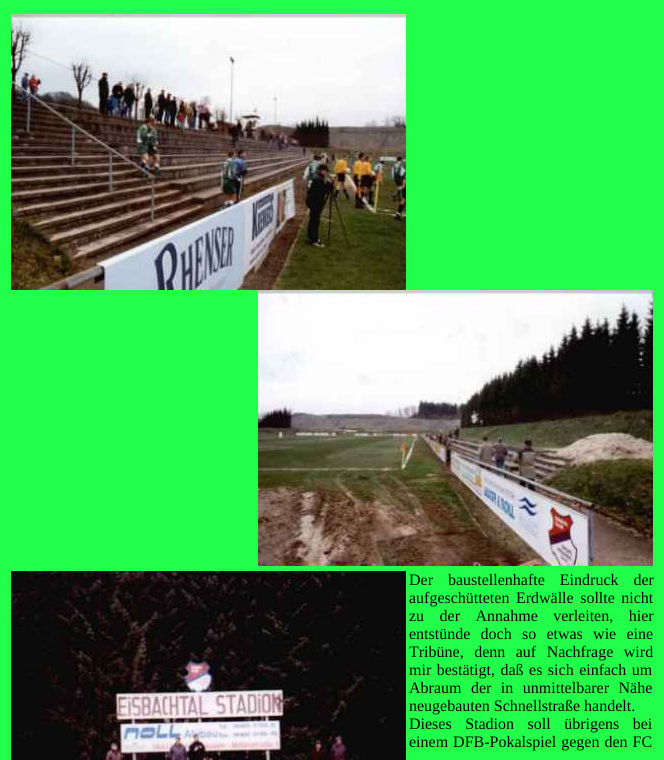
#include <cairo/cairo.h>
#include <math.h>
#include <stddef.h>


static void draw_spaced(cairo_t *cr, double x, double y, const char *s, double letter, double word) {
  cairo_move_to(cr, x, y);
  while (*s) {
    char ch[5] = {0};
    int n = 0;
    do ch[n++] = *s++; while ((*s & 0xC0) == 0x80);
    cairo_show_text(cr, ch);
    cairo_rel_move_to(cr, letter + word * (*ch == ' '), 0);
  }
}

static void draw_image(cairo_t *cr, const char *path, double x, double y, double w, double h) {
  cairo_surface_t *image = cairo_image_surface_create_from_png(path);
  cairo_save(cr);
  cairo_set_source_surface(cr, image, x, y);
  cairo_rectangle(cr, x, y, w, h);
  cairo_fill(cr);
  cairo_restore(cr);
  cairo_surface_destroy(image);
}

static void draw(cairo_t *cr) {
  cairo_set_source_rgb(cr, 33 / 255.0, 1, 74 / 255.0);
  cairo_paint(cr);
  draw_image(cr, "images/1.png", 11, 14, 395, 276);
  draw_image(cr, "images/2.png", 258, 290, 395, 276);
  draw_image(cr, "images/3.png", 11, 571, 395, 189);
  cairo_select_font_face(cr, "Liberation Serif", CAIRO_FONT_SLANT_NORMAL, CAIRO_FONT_WEIGHT_NORMAL);
  cairo_set_font_size(cr, 16);
  cairo_set_source_rgb(cr, 0, 0, 0);
  draw_spaced(cr, 409, 585, "Der baustellenhafte Eindruck der", 0, 11);
  draw_spaced(cr, 409, 603, "aufgeschütteten Erdwälle sollte nicht", 0, 2.5);
  draw_spaced(cr, 409, 621, "zu der Annahme verleiten, hier", 0, 11.5);
  draw_spaced(cr, 409, 639, "entstünde doch so etwas wie eine", 0, 6.25);
  draw_spaced(cr, 409, 657, "Tribüne, denn auf Nachfrage wird", 0, 6.5);
  draw_spaced(cr, 409, 675, "mir bestätigt, daß es sich einfach um", 0, 1.5);
  draw_spaced(cr, 409, 693, "Abraum der in unmittelbarer Nähe", 0, 5.5);
  cairo_move_to(cr, 409, 711);
  cairo_show_text(cr, "neugebauten Schnellstraße handelt.");
  draw_spaced(cr, 409, 729, "Dieses Stadion soll übrigens bei", 0, 9.5);
  draw_spaced(cr, 409, 747, "einem DFB-Pokalspiel gegen den FC", 0, 1);
}

int main(void) {
  cairo_surface_t *surface = cairo_image_surface_create(CAIRO_FORMAT_RGB24, 664, 760);
  cairo_t *cr = cairo_create(surface);
  cairo_font_options_t *options = cairo_font_options_create();
  cairo_font_options_set_hint_metrics(options, CAIRO_HINT_METRICS_OFF);
  cairo_font_options_set_hint_style(options, CAIRO_HINT_STYLE_NONE);
  cairo_set_font_options(cr, options);
  cairo_set_miter_limit(cr, 4);
  draw(cr);
  cairo_surface_write_to_png(surface, "out.png");
  cairo_font_options_destroy(options);
  cairo_destroy(cr);
  cairo_surface_destroy(surface);
  return 0;
}
